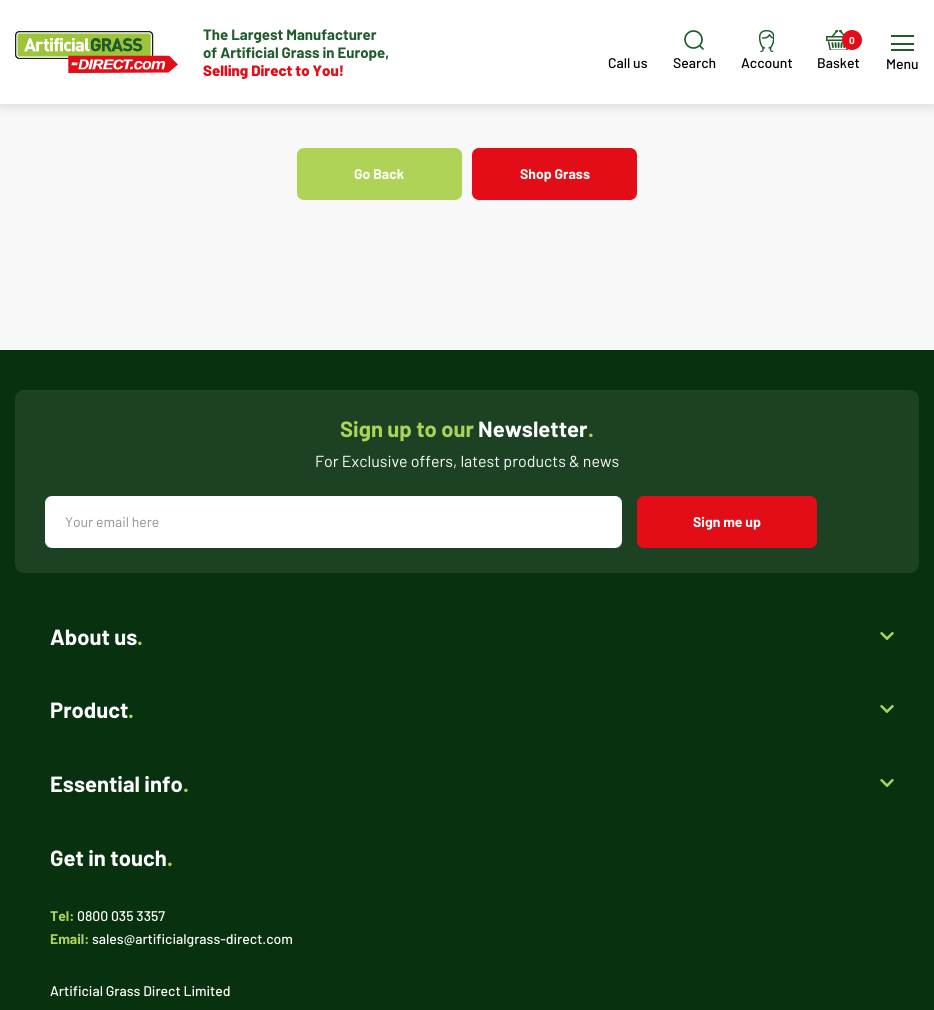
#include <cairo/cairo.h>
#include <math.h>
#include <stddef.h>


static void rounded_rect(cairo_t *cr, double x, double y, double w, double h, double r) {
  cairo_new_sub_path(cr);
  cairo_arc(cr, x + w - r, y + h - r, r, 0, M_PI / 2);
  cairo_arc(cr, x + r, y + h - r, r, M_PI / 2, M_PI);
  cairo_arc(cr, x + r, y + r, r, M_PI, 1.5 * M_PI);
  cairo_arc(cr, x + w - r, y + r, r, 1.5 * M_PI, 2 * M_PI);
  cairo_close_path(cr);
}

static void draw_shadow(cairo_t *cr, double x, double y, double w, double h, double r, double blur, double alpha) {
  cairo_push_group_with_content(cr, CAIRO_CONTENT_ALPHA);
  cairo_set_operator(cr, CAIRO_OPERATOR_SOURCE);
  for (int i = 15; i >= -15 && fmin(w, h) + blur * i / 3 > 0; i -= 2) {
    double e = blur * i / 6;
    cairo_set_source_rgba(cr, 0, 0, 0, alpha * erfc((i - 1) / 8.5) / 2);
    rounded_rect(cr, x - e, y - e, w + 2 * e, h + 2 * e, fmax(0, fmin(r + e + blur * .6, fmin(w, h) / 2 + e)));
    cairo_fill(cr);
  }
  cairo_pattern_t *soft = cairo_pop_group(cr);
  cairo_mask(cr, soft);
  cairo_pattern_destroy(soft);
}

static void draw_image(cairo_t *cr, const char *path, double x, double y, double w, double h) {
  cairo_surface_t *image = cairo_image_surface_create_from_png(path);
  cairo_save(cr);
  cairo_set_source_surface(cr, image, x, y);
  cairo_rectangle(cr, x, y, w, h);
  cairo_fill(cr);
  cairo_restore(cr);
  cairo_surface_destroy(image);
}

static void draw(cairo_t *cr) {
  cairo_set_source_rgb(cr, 248 / 255.0, 248 / 255.0, 248 / 255.0);
  cairo_paint(cr);
  cairo_set_source_rgb(cr, 0, 0, 0);
  draw_shadow(cr, 0, 0, 934, 104, 0, 7.5, 0.16);
  cairo_set_source_rgb(cr, 1, 1, 1);
  cairo_rectangle(cr, 0, 0, 934, 104);
  cairo_fill(cr);
  draw_image(cr, "images/1.png", 15, 31, 163, 42);
  cairo_arc(cr, 693.5, 39.5, 8.5, 0, 2 * M_PI);
  cairo_set_source_rgb(cr, 31 / 255.0, 92 / 255.0, 42 / 255.0);
  cairo_set_line_width(cr, 1.7);
  cairo_stroke(cr);
  cairo_new_path(cr);
  cairo_move_to(cr, 700, 46);
  cairo_line_to(cr, 703, 49);
  cairo_set_line_cap(cr, CAIRO_LINE_CAP_ROUND);
  cairo_stroke(cr);
  draw_image(cr, "images/2.png", 759, 30, 15, 22);
  draw_image(cr, "images/3.png", 826, 30, 22, 20);
  cairo_set_source_rgb(cr, 226 / 255.0, 13 / 255.0, 23 / 255.0);
  cairo_arc(cr, 852, 40, 10, 0, 2 * M_PI);
  cairo_fill(cr);
  cairo_set_source_rgb(cr, 31 / 255.0, 92 / 255.0, 42 / 255.0);
  cairo_rectangle(cr, 891, 35, 23, 2);
  cairo_fill(cr);
  cairo_rectangle(cr, 891, 43, 23, 2);
  cairo_fill(cr);
  cairo_rectangle(cr, 891, 49, 23, 2);
  cairo_fill(cr);
  cairo_set_source_rgb(cr, 175 / 255.0, 211 / 255.0, 87 / 255.0);
  rounded_rect(cr, 297, 148, 165, 52, 7);
  cairo_fill(cr);
  cairo_set_source_rgb(cr, 226 / 255.0, 13 / 255.0, 23 / 255.0);
  rounded_rect(cr, 472, 148, 165, 52, 7);
  cairo_fill(cr);
  cairo_set_source_rgb(cr, 8 / 255.0, 49 / 255.0, 16 / 255.0);
  cairo_rectangle(cr, 0, 350, 934, 660);
  cairo_fill(cr);
  cairo_set_source_rgb(cr, 28 / 255.0, 65 / 255.0, 35 / 255.0);
  rounded_rect(cr, 15, 390, 904, 183, 9);
  cairo_fill(cr);
  cairo_set_source_rgb(cr, 1, 1, 1);
  rounded_rect(cr, 45, 496, 577, 52, 7);
  cairo_fill(cr);
  cairo_set_source_rgb(cr, 226 / 255.0, 13 / 255.0, 23 / 255.0);
  rounded_rect(cr, 637, 496, 180, 52, 7);
  cairo_fill(cr);
  draw_image(cr, "images/4.png", 880, 631, 14, 10);
  draw_image(cr, "images/4.png", 880, 704, 14, 10);
  draw_image(cr, "images/4.png", 880, 778, 14, 10);
  cairo_select_font_face(cr, "Barlow", CAIRO_FONT_SLANT_NORMAL, CAIRO_FONT_WEIGHT_BOLD);
  cairo_set_font_size(cr, 15);
  cairo_set_source_rgb(cr, 31 / 255.0, 92 / 255.0, 42 / 255.0);
  cairo_move_to(cr, 203, 40);
  cairo_show_text(cr, "The Largest Manufacturer");
  cairo_move_to(cr, 203, 58);
  cairo_show_text(cr, "of Artificial Grass in Europe,");
  cairo_select_font_face(cr, "Barlow ExtraBold", CAIRO_FONT_SLANT_NORMAL, CAIRO_FONT_WEIGHT_NORMAL);
  cairo_set_source_rgb(cr, 226 / 255.0, 13 / 255.0, 23 / 255.0);
  cairo_move_to(cr, 203, 76);
  cairo_show_text(cr, "Selling Direct to You!");
  cairo_select_font_face(cr, "Barlow Medium", CAIRO_FONT_SLANT_NORMAL, CAIRO_FONT_WEIGHT_NORMAL);
  cairo_set_font_size(cr, 14);
  cairo_set_source_rgb(cr, 0, 0, 0);
  cairo_move_to(cr, 608, 68);
  cairo_show_text(cr, "Call us");
  cairo_move_to(cr, 673, 68);
  cairo_show_text(cr, "Search");
  cairo_move_to(cr, 741, 68);
  cairo_show_text(cr, "Account");
  cairo_select_font_face(cr, "Barlow", CAIRO_FONT_SLANT_NORMAL, CAIRO_FONT_WEIGHT_BOLD);
  cairo_set_font_size(cr, 10);
  cairo_set_source_rgb(cr, 1, 1, 1);
  cairo_move_to(cr, 849, 44);
  cairo_show_text(cr, "0");
  cairo_select_font_face(cr, "Barlow Medium", CAIRO_FONT_SLANT_NORMAL, CAIRO_FONT_WEIGHT_NORMAL);
  cairo_set_font_size(cr, 14);
  cairo_set_source_rgb(cr, 0, 0, 0);
  cairo_move_to(cr, 817, 68);
  cairo_show_text(cr, "Basket");
  cairo_move_to(cr, 886, 69);
  cairo_show_text(cr, "Menu");
  cairo_select_font_face(cr, "Barlow", CAIRO_FONT_SLANT_NORMAL, CAIRO_FONT_WEIGHT_BOLD);
  cairo_set_source_rgb(cr, 1, 1, 1);
  cairo_move_to(cr, 354, 179);
  cairo_show_text(cr, "Go Back");
  cairo_move_to(cr, 520, 179);
  cairo_show_text(cr, "Shop Grass");
  cairo_set_font_size(cr, 22);
  cairo_set_source_rgb(cr, 175 / 255.0, 211 / 255.0, 87 / 255.0);
  cairo_move_to(cr, 340, 437);
  cairo_show_text(cr, "Sign up to our");
  cairo_set_source_rgb(cr, 1, 1, 1);
  cairo_move_to(cr, 478, 437);
  cairo_show_text(cr, "Newsletter");
  cairo_set_source_rgb(cr, 175 / 255.0, 211 / 255.0, 87 / 255.0);
  cairo_move_to(cr, 588, 437);
  cairo_show_text(cr, ".");
  cairo_select_font_face(cr, "Barlow", CAIRO_FONT_SLANT_NORMAL, CAIRO_FONT_WEIGHT_NORMAL);
  cairo_set_font_size(cr, 16);
  cairo_set_source_rgb(cr, 1, 1, 1);
  cairo_move_to(cr, 315, 467);
  cairo_show_text(cr, "For Exclusive offers, latest products & news");
  cairo_set_font_size(cr, 14);
  cairo_set_source_rgb(cr, 144 / 255.0, 144 / 255.0, 144 / 255.0);
  cairo_move_to(cr, 65, 527);
  cairo_show_text(cr, "Your email here");
  cairo_select_font_face(cr, "Barlow", CAIRO_FONT_SLANT_NORMAL, CAIRO_FONT_WEIGHT_BOLD);
  cairo_set_source_rgb(cr, 1, 1, 1);
  cairo_move_to(cr, 693, 527);
  cairo_show_text(cr, "Sign me up");
  cairo_set_font_size(cr, 22);
  cairo_move_to(cr, 50, 645);
  cairo_show_text(cr, "About us");
  cairo_set_source_rgb(cr, 175 / 255.0, 211 / 255.0, 87 / 255.0);
  cairo_move_to(cr, 137, 645);
  cairo_show_text(cr, ".");
  cairo_set_source_rgb(cr, 1, 1, 1);
  cairo_move_to(cr, 50, 718);
  cairo_show_text(cr, "Product");
  cairo_set_source_rgb(cr, 175 / 255.0, 211 / 255.0, 87 / 255.0);
  cairo_move_to(cr, 128, 718);
  cairo_show_text(cr, ".");
  cairo_set_source_rgb(cr, 1, 1, 1);
  cairo_move_to(cr, 50, 792);
  cairo_show_text(cr, "Essential info");
  cairo_set_source_rgb(cr, 175 / 255.0, 211 / 255.0, 87 / 255.0);
  cairo_move_to(cr, 183, 792);
  cairo_show_text(cr, ".");
  cairo_set_source_rgb(cr, 1, 1, 1);
  cairo_move_to(cr, 50, 866);
  cairo_show_text(cr, "Get in touch");
  cairo_set_source_rgb(cr, 175 / 255.0, 211 / 255.0, 87 / 255.0);
  cairo_move_to(cr, 167, 866);
  cairo_show_text(cr, ".");
  cairo_set_font_size(cr, 14);
  cairo_move_to(cr, 50, 921);
  cairo_show_text(cr, "Tel:");
  cairo_select_font_face(cr, "Barlow Medium", CAIRO_FONT_SLANT_NORMAL, CAIRO_FONT_WEIGHT_NORMAL);
  cairo_set_source_rgb(cr, 1, 1, 1);
  cairo_move_to(cr, 77, 921);
  cairo_show_text(cr, "0800 035 3357");
  cairo_select_font_face(cr, "Barlow", CAIRO_FONT_SLANT_NORMAL, CAIRO_FONT_WEIGHT_BOLD);
  cairo_set_source_rgb(cr, 175 / 255.0, 211 / 255.0, 87 / 255.0);
  cairo_move_to(cr, 50, 944);
  cairo_show_text(cr, "Email:");
  cairo_select_font_face(cr, "Barlow Medium", CAIRO_FONT_SLANT_NORMAL, CAIRO_FONT_WEIGHT_NORMAL);
  cairo_set_source_rgb(cr, 1, 1, 1);
  cairo_move_to(cr, 92, 944);
  cairo_show_text(cr, "sales@artificialgrass-direct.com");
  cairo_move_to(cr, 50, 996);
  cairo_show_text(cr, "Artificial Grass Direct Limited");
}

int main(void) {
  cairo_surface_t *surface = cairo_image_surface_create(CAIRO_FORMAT_RGB24, 934, 1010);
  cairo_t *cr = cairo_create(surface);
  cairo_font_options_t *options = cairo_font_options_create();
  cairo_font_options_set_hint_metrics(options, CAIRO_HINT_METRICS_OFF);
  cairo_font_options_set_hint_style(options, CAIRO_HINT_STYLE_NONE);
  cairo_set_font_options(cr, options);
  cairo_set_miter_limit(cr, 4);
  draw(cr);
  cairo_surface_write_to_png(surface, "out.png");
  cairo_font_options_destroy(options);
  cairo_destroy(cr);
  cairo_surface_destroy(surface);
  return 0;
}
